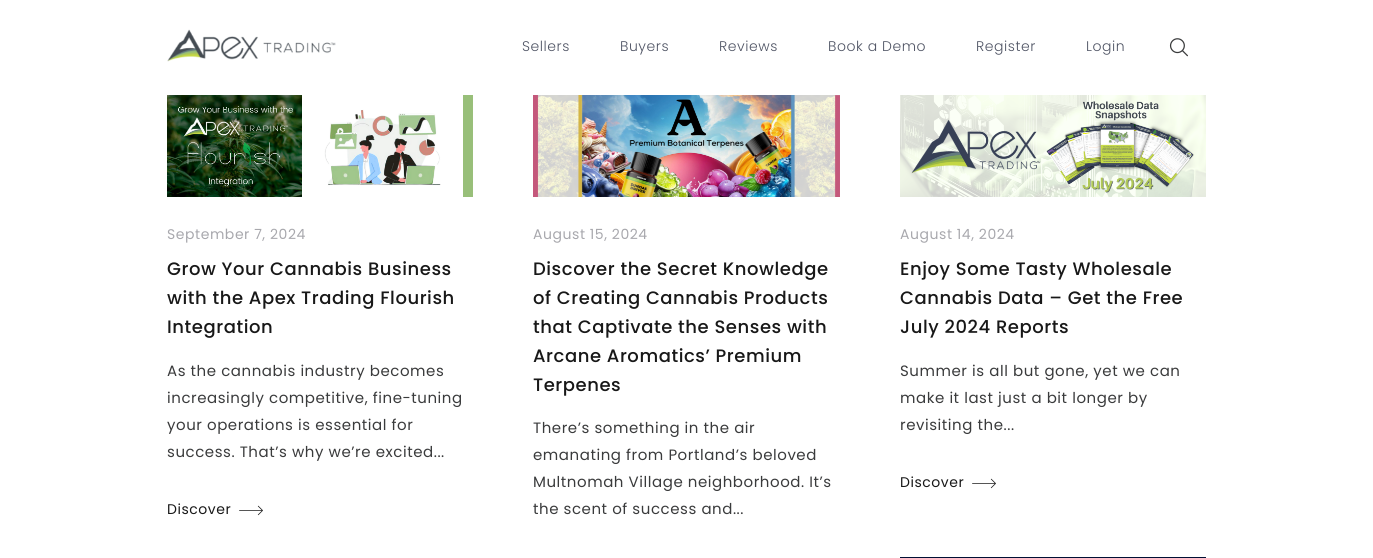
#include <cairo/cairo.h>
#include <math.h>
#include <stddef.h>


static void draw_spaced(cairo_t *cr, double x, double y, const char *s, double letter, double word) {
  cairo_move_to(cr, x, y);
  while (*s) {
    char ch[5] = {0};
    int n = 0;
    do ch[n++] = *s++; while ((*s & 0xC0) == 0x80);
    cairo_show_text(cr, ch);
    cairo_rel_move_to(cr, letter + word * (*ch == ' '), 0);
  }
}

static void draw_image(cairo_t *cr, const char *path, double x, double y, double w, double h) {
  cairo_surface_t *image = cairo_image_surface_create_from_png(path);
  cairo_save(cr);
  cairo_set_source_surface(cr, image, x, y);
  cairo_rectangle(cr, x, y, w, h);
  cairo_fill(cr);
  cairo_restore(cr);
  cairo_surface_destroy(image);
}

static void draw(cairo_t *cr) {
  cairo_set_source_rgb(cr, 1, 1, 1);
  cairo_paint(cr);
  draw_image(cr, "images/1.png", 167, 29, 169, 33);
  draw_image(cr, "images/2.png", 1169, 38, 19, 19);
  draw_image(cr, "images/3.png", 167, 95, 306, 102);
  draw_image(cr, "images/4.png", 239, 505, 24, 11);
  draw_image(cr, "images/5.png", 533, 95, 307, 102);
  draw_image(cr, "images/6.png", 900, 95, 306, 102);
  draw_image(cr, "images/4.png", 972, 478, 24, 11);
  draw_image(cr, "images/7.png", 900, 557, 306, 1);
  cairo_select_font_face(cr, "Poppins Light", CAIRO_FONT_SLANT_NORMAL, CAIRO_FONT_WEIGHT_NORMAL);
  cairo_set_font_size(cr, 14);
  cairo_set_source_rgb(cr, 79 / 255.0, 84 / 255.0, 100 / 255.0);
  draw_spaced(cr, 522, 51, "Sellers", 0.55, 0);
  draw_spaced(cr, 620, 51, "Buyers", 0.55, 0);
  draw_spaced(cr, 719, 51, "Reviews", 0.55, 0);
  draw_spaced(cr, 828, 51, "Book a Demo", 0.55, 0);
  draw_spaced(cr, 976, 51, "Register", 0.55, 0);
  draw_spaced(cr, 1086, 51, "Login", 0.55, 0);
  cairo_select_font_face(cr, "Poppins", CAIRO_FONT_SLANT_NORMAL, CAIRO_FONT_WEIGHT_NORMAL);
  cairo_set_source_rgb(cr, 168 / 255.0, 168 / 255.0, 173 / 255.0);
  draw_spaced(cr, 167, 239, "September 7, 2024", 0.55, 0);
  cairo_select_font_face(cr, "Poppins Medium", CAIRO_FONT_SLANT_NORMAL, CAIRO_FONT_WEIGHT_NORMAL);
  cairo_set_font_size(cr, 18);
  cairo_set_source_rgb(cr, 24 / 255.0, 24 / 255.0, 24 / 255.0);
  draw_spaced(cr, 167, 275, "Grow Your Cannabis Business", 0.55, 0);
  draw_spaced(cr, 167, 304, "with the Apex Trading Flourish", 0.55, 0);
  draw_spaced(cr, 167, 333, "Integration", 0.55, 0);
  cairo_select_font_face(cr, "Poppins", CAIRO_FONT_SLANT_NORMAL, CAIRO_FONT_WEIGHT_NORMAL);
  cairo_set_font_size(cr, 15);
  cairo_set_source_rgb(cr, 58 / 255.0, 59 / 255.0, 60 / 255.0);
  draw_spaced(cr, 167, 376, "As the cannabis industry becomes", 0.55, 0);
  draw_spaced(cr, 167, 403, "increasingly competitive, fine-tuning", 0.55, 0);
  draw_spaced(cr, 167, 430, "your operations is essential for", 0.55, 0);
  draw_spaced(cr, 167, 457, "success. That’s why we’re excited...", 0.55, 0);
  cairo_set_font_size(cr, 14);
  cairo_set_source_rgb(cr, 24 / 255.0, 24 / 255.0, 24 / 255.0);
  draw_spaced(cr, 167, 514, "Discover", 0.55, 0);
  cairo_set_source_rgb(cr, 168 / 255.0, 168 / 255.0, 173 / 255.0);
  draw_spaced(cr, 533, 239, "August 15, 2024", 0.55, 0);
  cairo_select_font_face(cr, "Poppins Medium", CAIRO_FONT_SLANT_NORMAL, CAIRO_FONT_WEIGHT_NORMAL);
  cairo_set_font_size(cr, 18);
  cairo_set_source_rgb(cr, 24 / 255.0, 24 / 255.0, 24 / 255.0);
  draw_spaced(cr, 533, 275, "Discover the Secret Knowledge", 0.55, 0);
  draw_spaced(cr, 533, 304, "of Creating Cannabis Products", 0.55, 0);
  draw_spaced(cr, 533, 333, "that Captivate the Senses with", 0.55, 0);
  draw_spaced(cr, 533, 362, "Arcane Aromatics’ Premium", 0.55, 0);
  draw_spaced(cr, 533, 391, "Terpenes", 0.55, 0);
  cairo_select_font_face(cr, "Poppins", CAIRO_FONT_SLANT_NORMAL, CAIRO_FONT_WEIGHT_NORMAL);
  cairo_set_font_size(cr, 15);
  cairo_set_source_rgb(cr, 58 / 255.0, 59 / 255.0, 60 / 255.0);
  draw_spaced(cr, 533, 433, "There’s something in the air", 0.55, 0);
  draw_spaced(cr, 533, 460, "emanating from Portland’s beloved", 0.55, 0);
  draw_spaced(cr, 533, 487, "Multnomah Village neighborhood. It’s", 0.55, 0);
  draw_spaced(cr, 533, 514, "the scent of success and...", 0.55, 0);
  cairo_set_font_size(cr, 14);
  cairo_set_source_rgb(cr, 168 / 255.0, 168 / 255.0, 173 / 255.0);
  draw_spaced(cr, 900, 239, "August 14, 2024", 0.55, 0);
  cairo_select_font_face(cr, "Poppins Medium", CAIRO_FONT_SLANT_NORMAL, CAIRO_FONT_WEIGHT_NORMAL);
  cairo_set_font_size(cr, 18);
  cairo_set_source_rgb(cr, 24 / 255.0, 24 / 255.0, 24 / 255.0);
  draw_spaced(cr, 900, 275, "Enjoy Some Tasty Wholesale", 0.55, 0);
  draw_spaced(cr, 900, 304, "Cannabis Data – Get the Free", 0.55, 0);
  draw_spaced(cr, 900, 333, "July 2024 Reports", 0.55, 0);
  cairo_select_font_face(cr, "Poppins", CAIRO_FONT_SLANT_NORMAL, CAIRO_FONT_WEIGHT_NORMAL);
  cairo_set_font_size(cr, 15);
  cairo_set_source_rgb(cr, 58 / 255.0, 59 / 255.0, 60 / 255.0);
  draw_spaced(cr, 900, 376, "Summer is all but gone, yet we can", 0.55, 0);
  draw_spaced(cr, 900, 403, "make it last just a bit longer by", 0.55, 0);
  draw_spaced(cr, 900, 430, "revisiting the...", 0.55, 0);
  cairo_set_font_size(cr, 14);
  cairo_set_source_rgb(cr, 24 / 255.0, 24 / 255.0, 24 / 255.0);
  draw_spaced(cr, 900, 487, "Discover", 0.55, 0);
}

int main(void) {
  cairo_surface_t *surface = cairo_image_surface_create(CAIRO_FORMAT_RGB24, 1373, 558);
  cairo_t *cr = cairo_create(surface);
  cairo_font_options_t *options = cairo_font_options_create();
  cairo_font_options_set_hint_metrics(options, CAIRO_HINT_METRICS_OFF);
  cairo_font_options_set_hint_style(options, CAIRO_HINT_STYLE_NONE);
  cairo_set_font_options(cr, options);
  cairo_set_miter_limit(cr, 4);
  draw(cr);
  cairo_surface_write_to_png(surface, "out.png");
  cairo_font_options_destroy(options);
  cairo_destroy(cr);
  cairo_surface_destroy(surface);
  return 0;
}
